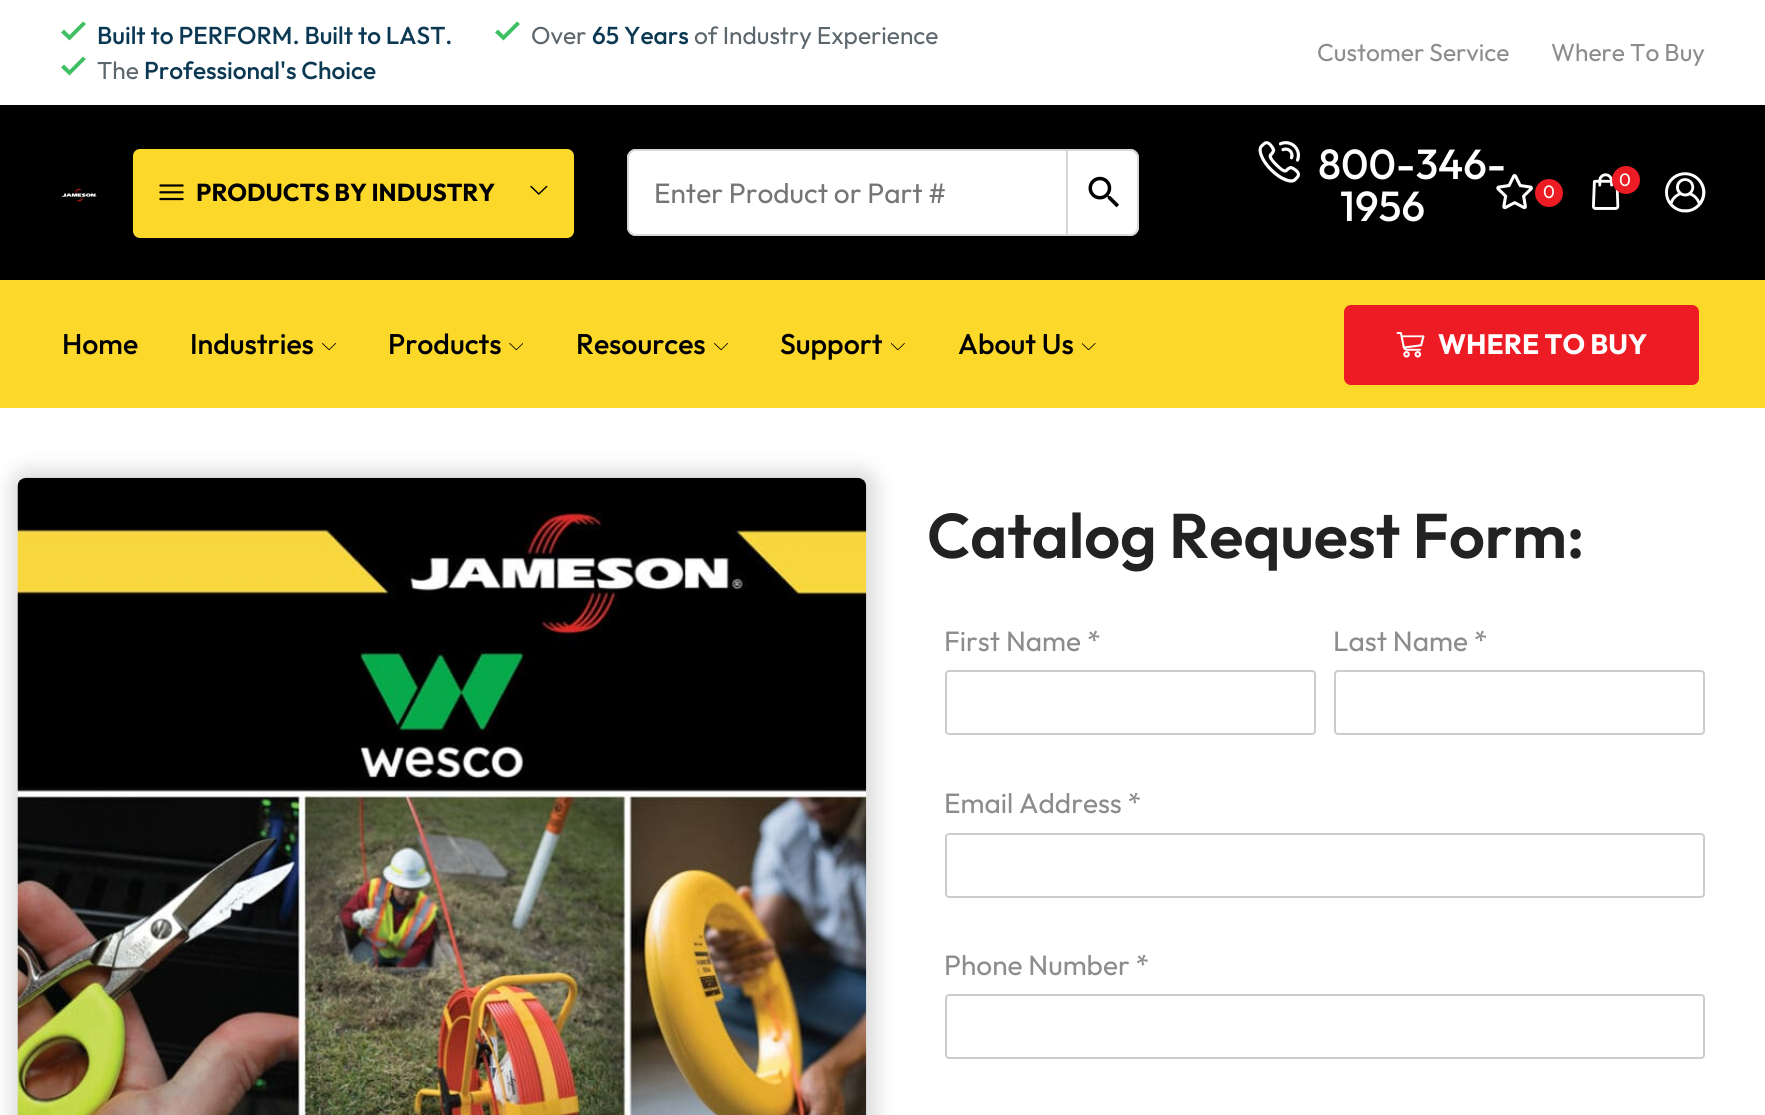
#include <cairo/cairo.h>
#include <math.h>
#include <stddef.h>


static void rounded_rect(cairo_t *cr, double x, double y, double w, double h, double r) {
  cairo_new_sub_path(cr);
  cairo_arc(cr, x + w - r, y + h - r, r, 0, M_PI / 2);
  cairo_arc(cr, x + r, y + h - r, r, M_PI / 2, M_PI);
  cairo_arc(cr, x + r, y + r, r, M_PI, 1.5 * M_PI);
  cairo_arc(cr, x + w - r, y + r, r, 1.5 * M_PI, 2 * M_PI);
  cairo_close_path(cr);
}

static void draw_shadow(cairo_t *cr, double x, double y, double w, double h, double r, double blur, double alpha) {
  cairo_push_group_with_content(cr, CAIRO_CONTENT_ALPHA);
  cairo_set_operator(cr, CAIRO_OPERATOR_SOURCE);
  for (int i = 15; i >= -15 && fmin(w, h) + blur * i / 3 > 0; i -= 2) {
    double e = blur * i / 6;
    cairo_set_source_rgba(cr, 0, 0, 0, alpha * erfc((i - 1) / 8.5) / 2);
    rounded_rect(cr, x - e, y - e, w + 2 * e, h + 2 * e, fmax(0, fmin(r + e + blur * .6, fmin(w, h) / 2 + e)));
    cairo_fill(cr);
  }
  cairo_pattern_t *soft = cairo_pop_group(cr);
  cairo_mask(cr, soft);
  cairo_pattern_destroy(soft);
}

static void draw_image(cairo_t *cr, const char *path, double x, double y, double w, double h) {
  cairo_surface_t *image = cairo_image_surface_create_from_png(path);
  cairo_save(cr);
  cairo_set_source_surface(cr, image, x, y);
  cairo_rectangle(cr, x, y, w, h);
  cairo_fill(cr);
  cairo_restore(cr);
  cairo_surface_destroy(image);
}

static void draw(cairo_t *cr) {
  cairo_set_source_rgb(cr, 1, 1, 1);
  cairo_paint(cr);
  cairo_set_source_rgb(cr, 62 / 255.0, 192 / 255.0, 99 / 255.0);
  cairo_new_path(cr);
  cairo_move_to(cr, 69.5, 40.5);
  cairo_line_to(cr, 61, 32.5);
  cairo_line_to(cr, 64, 29.5);
  cairo_line_to(cr, 69.5, 35);
  cairo_line_to(cr, 83, 21.5);
  cairo_line_to(cr, 86, 24);
  cairo_close_path(cr);
  cairo_fill(cr);
  cairo_new_path(cr);
  cairo_move_to(cr, 503.5, 40.5);
  cairo_line_to(cr, 495, 32.5);
  cairo_line_to(cr, 498, 29.5);
  cairo_line_to(cr, 503.5, 35);
  cairo_line_to(cr, 517, 21.5);
  cairo_line_to(cr, 520, 24);
  cairo_close_path(cr);
  cairo_fill(cr);
  cairo_new_path(cr);
  cairo_move_to(cr, 69.5, 75.5);
  cairo_line_to(cr, 61, 67.5);
  cairo_line_to(cr, 64, 64.5);
  cairo_line_to(cr, 69.5, 70);
  cairo_line_to(cr, 83, 56.5);
  cairo_line_to(cr, 86, 59);
  cairo_close_path(cr);
  cairo_fill(cr);
  cairo_set_source_rgb(cr, 0, 0, 0);
  cairo_rectangle(cr, 0, 105, 1765, 175);
  cairo_fill(cr);
  draw_image(cr, "images/1.png", 62, 188, 35, 14);
  cairo_set_source_rgb(cr, 252 / 255.0, 216 / 255.0, 43 / 255.0);
  rounded_rect(cr, 133, 149, 441, 89, 7);
  cairo_fill(cr);
  draw_image(cr, "images/2.png", 159, 184, 25, 17);
  draw_image(cr, "images/3.png", 530, 185, 18, 10);
  cairo_set_source_rgb(cr, 1, 1, 1);
  rounded_rect(cr, 627, 149, 512, 87, 9);
  cairo_fill(cr);
  cairo_new_path(cr);
  cairo_move_to(cr, 1067, 150);
  cairo_line_to(cr, 1130, 150);
  cairo_curve_to(cr, 1134.5, 150, 1138, 153.5, 1138, 158);
  cairo_line_to(cr, 1138, 227);
  cairo_curve_to(cr, 1138, 231.5, 1134.5, 235, 1130, 235);
  cairo_line_to(cr, 1067, 235);
  cairo_close_path(cr);
  cairo_fill_preserve(cr);
  cairo_set_source_rgb(cr, 216 / 255.0, 216 / 255.0, 216 / 255.0);
  cairo_stroke(cr);
  cairo_new_path(cr);
  cairo_move_to(cr, 636, 150);
  cairo_line_to(cr, 1067, 150);
  cairo_line_to(cr, 1067, 235);
  cairo_line_to(cr, 636, 235);
  cairo_curve_to(cr, 631.5, 235, 628, 231.5, 628, 227);
  cairo_line_to(cr, 628, 158);
  cairo_curve_to(cr, 628, 153.5, 631.5, 150, 636, 150);
  cairo_close_path(cr);
  cairo_stroke(cr);
  draw_image(cr, "images/4.png", 1088, 176, 31, 32);
  draw_image(cr, "images/5.png", 1258, 141, 42, 42);
  draw_image(cr, "images/6.png", 1592, 173, 28, 37);
  cairo_set_source_rgb(cr, 237 / 255.0, 28 / 255.0, 36 / 255.0);
  cairo_arc(cr, 1626, 180, 14, 0, 2 * M_PI);
  cairo_fill(cr);
  draw_image(cr, "images/7.png", 1665, 172, 41, 41);
  cairo_arc(cr, 1549, 193, 14, 0, 2 * M_PI);
  cairo_fill(cr);
  cairo_set_source_rgb(cr, 252 / 255.0, 216 / 255.0, 43 / 255.0);
  cairo_rectangle(cr, 0, 280, 1765, 128);
  cairo_fill(cr);
  draw_image(cr, "images/9.png", 322, 343, 14, 8);
  draw_image(cr, "images/10.png", 509, 343, 14, 8);
  draw_image(cr, "images/9.png", 714, 343, 14, 8);
  draw_image(cr, "images/11.png", 891, 343, 14, 8);
  draw_image(cr, "images/12.png", 1082, 343, 14, 8);
  cairo_set_source_rgb(cr, 237 / 255.0, 28 / 255.0, 36 / 255.0);
  rounded_rect(cr, 1344, 305, 355, 80, 7);
  cairo_fill(cr);
  draw_image(cr, "images/13.png", 1396, 332, 29, 26);
  cairo_set_source_rgb(cr, 221 / 255.0, 221 / 255.0, 221 / 255.0);
  draw_shadow(cr, 11, 469, 866, 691, 18, 9, 1);
  draw_image(cr, "images/14.png", 17, 477, 850, 638);
  rounded_rect(cr, 946, 671, 369, 63, 3);
  cairo_set_source_rgb(cr, 204 / 255.0, 204 / 255.0, 204 / 255.0);
  cairo_stroke(cr);
  rounded_rect(cr, 1335, 671, 369, 63, 3);
  cairo_stroke(cr);
  rounded_rect(cr, 946, 834, 758, 63, 3);
  cairo_stroke(cr);
  rounded_rect(cr, 946, 995, 758, 63, 3);
  cairo_stroke(cr);
  cairo_select_font_face(cr, "Outfit Medium", CAIRO_FONT_SLANT_NORMAL, CAIRO_FONT_WEIGHT_NORMAL);
  cairo_set_font_size(cr, 24.5);
  cairo_set_source_rgb(cr, 11 / 255.0, 57 / 255.0, 84 / 255.0);
  cairo_move_to(cr, 97, 44);
  cairo_show_text(cr, "Built to PERFORM. Built to LAST.");
  cairo_select_font_face(cr, "Outfit", CAIRO_FONT_SLANT_NORMAL, CAIRO_FONT_WEIGHT_NORMAL);
  cairo_set_source_rgb(cr, 92 / 255.0, 103 / 255.0, 109 / 255.0);
  cairo_move_to(cr, 531, 44);
  cairo_show_text(cr, "Over");
  cairo_select_font_face(cr, "Outfit Medium", CAIRO_FONT_SLANT_NORMAL, CAIRO_FONT_WEIGHT_NORMAL);
  cairo_set_source_rgb(cr, 11 / 255.0, 57 / 255.0, 84 / 255.0);
  cairo_move_to(cr, 592, 44);
  cairo_show_text(cr, "65 Years");
  cairo_select_font_face(cr, "Outfit", CAIRO_FONT_SLANT_NORMAL, CAIRO_FONT_WEIGHT_NORMAL);
  cairo_set_source_rgb(cr, 92 / 255.0, 103 / 255.0, 109 / 255.0);
  cairo_move_to(cr, 694, 44);
  cairo_show_text(cr, "of Industry Experience");
  cairo_move_to(cr, 97, 79);
  cairo_show_text(cr, "The");
  cairo_select_font_face(cr, "Outfit Medium", CAIRO_FONT_SLANT_NORMAL, CAIRO_FONT_WEIGHT_NORMAL);
  cairo_set_source_rgb(cr, 11 / 255.0, 57 / 255.0, 84 / 255.0);
  cairo_move_to(cr, 144, 79);
  cairo_show_text(cr, "Professional's Choice");
  cairo_select_font_face(cr, "Outfit", CAIRO_FONT_SLANT_NORMAL, CAIRO_FONT_WEIGHT_NORMAL);
  cairo_set_source_rgb(cr, 140 / 255.0, 140 / 255.0, 140 / 255.0);
  cairo_move_to(cr, 1317, 61);
  cairo_show_text(cr, "Customer Service");
  cairo_move_to(cr, 1551, 61);
  cairo_show_text(cr, "Where To Buy");
  cairo_select_font_face(cr, "Outfit", CAIRO_FONT_SLANT_NORMAL, CAIRO_FONT_WEIGHT_BOLD);
  cairo_set_source_rgb(cr, 0, 0, 0);
  cairo_move_to(cr, 196, 201);
  cairo_show_text(cr, "PRODUCTS BY INDUSTRY");
  cairo_select_font_face(cr, "Outfit", CAIRO_FONT_SLANT_NORMAL, CAIRO_FONT_WEIGHT_NORMAL);
  cairo_set_font_size(cr, 28);
  cairo_set_source_rgb(cr, 117 / 255.0, 117 / 255.0, 117 / 255.0);
  cairo_move_to(cr, 654, 203);
  cairo_show_text(cr, "Enter Product or Part #");
  cairo_select_font_face(cr, "Outfit Medium", CAIRO_FONT_SLANT_NORMAL, CAIRO_FONT_WEIGHT_NORMAL);
  cairo_set_font_size(cr, 42);
  cairo_set_source_rgb(cr, 1, 1, 1);
  cairo_move_to(cr, 1318, 179);
  cairo_show_text(cr, "800-346-");
  cairo_move_to(cr, 1340, 221);
  cairo_show_text(cr, "1956");
  cairo_select_font_face(cr, "Outfit", CAIRO_FONT_SLANT_NORMAL, CAIRO_FONT_WEIGHT_NORMAL);
  cairo_set_font_size(cr, 18);
  cairo_move_to(cr, 1619, 186);
  cairo_show_text(cr, "0");
  draw_image(cr, "images/8.png", 1496, 174, 37, 36);
  cairo_move_to(cr, 1543, 198);
  cairo_show_text(cr, "0");
  cairo_select_font_face(cr, "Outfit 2 Medium", CAIRO_FONT_SLANT_NORMAL, CAIRO_FONT_WEIGHT_NORMAL);
  cairo_set_font_size(cr, 28.5);
  cairo_set_source_rgb(cr, 0, 0, 0);
  cairo_move_to(cr, 62, 354);
  cairo_show_text(cr, "Home");
  cairo_move_to(cr, 190, 354);
  cairo_show_text(cr, "Industries");
  cairo_move_to(cr, 388, 354);
  cairo_show_text(cr, "Products");
  cairo_move_to(cr, 576, 354);
  cairo_show_text(cr, "Resources");
  cairo_move_to(cr, 780, 354);
  cairo_show_text(cr, "Support");
  cairo_move_to(cr, 958, 354);
  cairo_show_text(cr, "About Us");
  cairo_select_font_face(cr, "Outfit 2", CAIRO_FONT_SLANT_NORMAL, CAIRO_FONT_WEIGHT_BOLD);
  cairo_set_font_size(cr, 28);
  cairo_set_source_rgb(cr, 1, 1, 1);
  cairo_move_to(cr, 1438, 354);
  cairo_show_text(cr, "WHERE TO BUY");
  cairo_select_font_face(cr, "Outfit SemiBold", CAIRO_FONT_SLANT_NORMAL, CAIRO_FONT_WEIGHT_NORMAL);
  cairo_set_font_size(cr, 63);
  cairo_set_source_rgb(cr, 34 / 255.0, 34 / 255.0, 34 / 255.0);
  cairo_move_to(cr, 927, 558);
  cairo_show_text(cr, "Catalog Request Form:");
  cairo_select_font_face(cr, "Outfit", CAIRO_FONT_SLANT_NORMAL, CAIRO_FONT_WEIGHT_NORMAL);
  cairo_set_font_size(cr, 28);
  cairo_set_source_rgb(cr, 140 / 255.0, 140 / 255.0, 140 / 255.0);
  cairo_move_to(cr, 944, 651);
  cairo_show_text(cr, "First Name *");
  cairo_move_to(cr, 1333, 651);
  cairo_show_text(cr, "Last Name *");
  cairo_move_to(cr, 944, 813);
  cairo_show_text(cr, "Email Address *");
  cairo_move_to(cr, 944, 975);
  cairo_show_text(cr, "Phone Number *");
}

int main(void) {
  cairo_surface_t *surface = cairo_image_surface_create(CAIRO_FORMAT_RGB24, 1765, 1115);
  cairo_t *cr = cairo_create(surface);
  cairo_font_options_t *options = cairo_font_options_create();
  cairo_font_options_set_hint_metrics(options, CAIRO_HINT_METRICS_OFF);
  cairo_font_options_set_hint_style(options, CAIRO_HINT_STYLE_NONE);
  cairo_set_font_options(cr, options);
  cairo_set_miter_limit(cr, 4);
  draw(cr);
  cairo_surface_write_to_png(surface, "out.png");
  cairo_font_options_destroy(options);
  cairo_destroy(cr);
  cairo_surface_destroy(surface);
  return 0;
}
